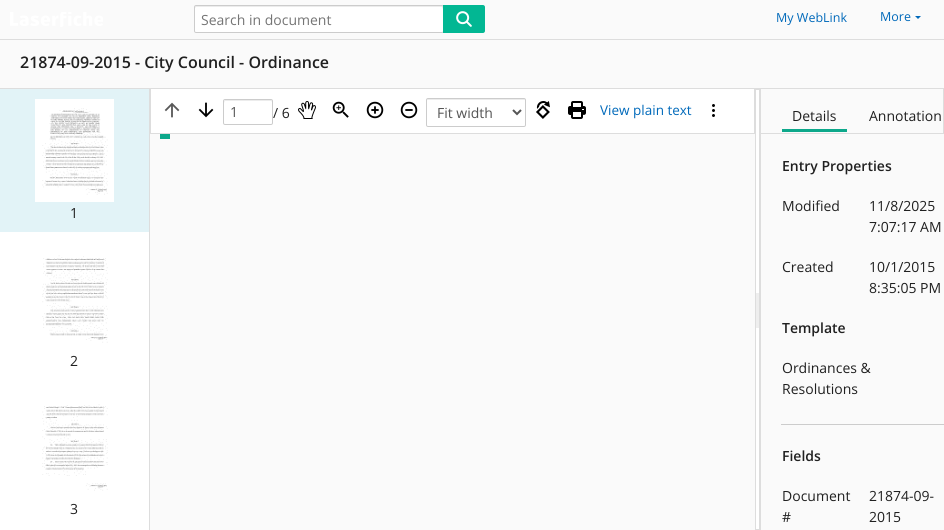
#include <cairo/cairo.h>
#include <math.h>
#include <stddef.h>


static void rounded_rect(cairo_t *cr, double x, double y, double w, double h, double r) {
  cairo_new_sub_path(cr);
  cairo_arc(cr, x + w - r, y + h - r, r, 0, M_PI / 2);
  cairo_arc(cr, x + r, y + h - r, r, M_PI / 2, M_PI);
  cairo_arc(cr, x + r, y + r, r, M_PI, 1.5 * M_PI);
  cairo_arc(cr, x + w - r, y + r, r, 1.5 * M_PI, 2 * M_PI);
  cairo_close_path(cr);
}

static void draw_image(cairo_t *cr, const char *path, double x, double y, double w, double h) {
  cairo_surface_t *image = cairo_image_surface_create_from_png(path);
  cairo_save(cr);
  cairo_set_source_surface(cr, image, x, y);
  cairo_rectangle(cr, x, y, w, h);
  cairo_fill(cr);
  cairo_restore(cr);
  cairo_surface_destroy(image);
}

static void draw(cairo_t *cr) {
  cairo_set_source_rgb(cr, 1, 1, 1);
  cairo_paint(cr);
  cairo_set_source_rgb(cr, 250 / 255.0, 250 / 255.0, 250 / 255.0);
  cairo_rectangle(cr, 0, 0, 944, 39);
  cairo_fill(cr);
  cairo_set_source_rgb(cr, 221 / 255.0, 221 / 255.0, 221 / 255.0);
  cairo_rectangle(cr, 0, 39, 944, 1);
  cairo_fill(cr);
  draw_image(cr, "images/1.png", 10, 12, 93, 15);
  cairo_set_source_rgb(cr, 1, 1, 1);
  rounded_rect(cr, 194, 5, 250, 28, 2);
  cairo_fill(cr);
  cairo_set_source_rgb(cr, 236 / 255.0, 236 / 255.0, 236 / 255.0);
  cairo_new_path(cr);
  cairo_move_to(cr, 196, 7);
  cairo_line_to(cr, 442, 7);
  cairo_line_to(cr, 443, 9);
  cairo_line_to(cr, 443, 7);
  cairo_curve_to(cr, 443, 6, 443, 6, 442, 6);
  cairo_line_to(cr, 196, 6);
  cairo_curve_to(cr, 195, 6, 195, 6, 195, 7);
  cairo_line_to(cr, 195, 8);
  cairo_close_path(cr);
  cairo_fill(cr);
  rounded_rect(cr, 194.5, 5.5, 249, 27, 1.5);
  cairo_set_source_rgb(cr, 204 / 255.0, 204 / 255.0, 204 / 255.0);
  cairo_set_line_width(cr, 1);
  cairo_stroke(cr);
  cairo_set_source_rgb(cr, 2 / 255.0, 183 / 255.0, 147 / 255.0);
  cairo_new_path(cr);
  cairo_move_to(cr, 443, 5);
  cairo_line_to(cr, 483, 5);
  cairo_curve_to(cr, 484, 5, 485, 6, 485, 7);
  cairo_line_to(cr, 485, 31);
  cairo_curve_to(cr, 485, 32, 484, 33, 483, 33);
  cairo_line_to(cr, 443, 33);
  cairo_close_path(cr);
  cairo_fill(cr);
  draw_image(cr, "images/2.png", 456, 11, 16, 16);
  cairo_set_source_rgb(cr, 0, 105 / 255.0, 186 / 255.0);
  cairo_new_path(cr);
  cairo_move_to(cr, 915, 16);
  cairo_line_to(cr, 921, 16);
  cairo_line_to(cr, 918, 19);
  cairo_close_path(cr);
  cairo_fill(cr);
  cairo_set_source_rgb(cr, 250 / 255.0, 250 / 255.0, 250 / 255.0);
  cairo_rectangle(cr, 0, 40, 944, 48);
  cairo_fill(cr);
  cairo_set_source_rgb(cr, 221 / 255.0, 221 / 255.0, 221 / 255.0);
  cairo_rectangle(cr, 0, 88, 944, 1);
  cairo_fill(cr);
  cairo_set_source_rgb(cr, 250 / 255.0, 250 / 255.0, 250 / 255.0);
  cairo_rectangle(cr, 150, 134, 605, 396);
  cairo_fill(cr);
  cairo_set_source_rgb(cr, 221 / 255.0, 221 / 255.0, 221 / 255.0);
  cairo_rectangle(cr, 754, 89, 1, 45);
  cairo_fill(cr);
  cairo_rectangle(cr, 150, 133, 605, 1);
  cairo_fill(cr);
  cairo_rectangle(cr, 150, 89, 1, 45);
  cairo_fill(cr);
  draw_image(cr, "images/3.png", 164, 102, 16, 16);
  draw_image(cr, "images/4.png", 198, 102, 16, 16);
  cairo_set_source_rgb(cr, 236 / 255.0, 236 / 255.0, 236 / 255.0);
  cairo_new_path(cr);
  cairo_move_to(cr, 225, 101);
  cairo_line_to(cr, 271, 101);
  cairo_line_to(cr, 272, 102);
  cairo_curve_to(cr, 272, 98, 269, 100, 263, 100);
  cairo_line_to(cr, 233, 100);
  cairo_curve_to(cr, 226, 100, 224, 98, 224, 103);
  cairo_close_path(cr);
  cairo_fill(cr);
  rounded_rect(cr, 223.5, 99.5, 49, 25, 1.5);
  cairo_set_source_rgb(cr, 204 / 255.0, 204 / 255.0, 204 / 255.0);
  cairo_stroke(cr);
  draw_image(cr, "images/5.png", 298, 101, 18, 18);
  draw_image(cr, "images/6.png", 332, 101, 17, 17);
  draw_image(cr, "images/7.png", 366, 101, 18, 18);
  draw_image(cr, "images/8.png", 400, 101, 18, 18);
  cairo_set_source_rgb(cr, 236 / 255.0, 236 / 255.0, 236 / 255.0);
  cairo_new_path(cr);
  cairo_move_to(cr, 428, 100);
  cairo_line_to(cr, 524, 100);
  cairo_curve_to(cr, 525, 100, 525, 100, 525, 101);
  cairo_curve_to(cr, 525, 100, 525, 99, 524, 99);
  cairo_line_to(cr, 428, 99);
  cairo_curve_to(cr, 427, 99, 427, 100, 427, 101);
  cairo_curve_to(cr, 427, 100, 427, 100, 428, 100);
  cairo_close_path(cr);
  cairo_fill(cr);
  rounded_rect(cr, 426.5, 98.5, 99, 28, 1.5);
  cairo_set_source_rgb(cr, 204 / 255.0, 204 / 255.0, 204 / 255.0);
  cairo_stroke(cr);
  cairo_new_path(cr);
  cairo_move_to(cr, 513, 110);
  cairo_line_to(cr, 517, 114);
  cairo_line_to(cr, 521, 110);
  cairo_set_source_rgb(cr, 85 / 255.0, 85 / 255.0, 85 / 255.0);
  cairo_set_line_width(cr, 2);
  cairo_stroke(cr);
  draw_image(cr, "images/9.png", 536, 101, 14, 18);
  draw_image(cr, "images/10.png", 568, 101, 18, 18);
  draw_image(cr, "images/11.png", 712, 104, 3, 13);
  cairo_set_source_rgb(cr, 13 / 255.0, 168 / 255.0, 139 / 255.0);
  cairo_rectangle(cr, 160, 134, 10, 5);
  cairo_fill(cr);
  cairo_set_source_rgb(cr, 221 / 255.0, 221 / 255.0, 221 / 255.0);
  cairo_rectangle(cr, 149, 89, 1, 441);
  cairo_fill(cr);
  cairo_set_source_rgb(cr, 226 / 255.0, 243 / 255.0, 247 / 255.0);
  cairo_rectangle(cr, 0, 89, 149, 143);
  cairo_fill(cr);
  draw_image(cr, "images/12.png", 35, 99, 79, 103);
  draw_image(cr, "images/13.png", 42, 255, 66, 88);
  draw_image(cr, "images/14.png", 42, 404, 66, 87);
  cairo_rectangle(cr, 755.5, 89.5, 4, 440);
  cairo_set_source_rgb(cr, 221 / 255.0, 221 / 255.0, 221 / 255.0);
  cairo_set_line_width(cr, 1);
  cairo_stroke(cr);
  cairo_set_source_rgb(cr, 238 / 255.0, 238 / 255.0, 238 / 255.0);
  cairo_rectangle(cr, 756, 293, 3, 35);
  cairo_fill(cr);
  cairo_set_source_rgb(cr, 221 / 255.0, 221 / 255.0, 221 / 255.0);
  cairo_rectangle(cr, 760, 89, 1, 441);
  cairo_fill(cr);
  cairo_set_source_rgb(cr, 250 / 255.0, 250 / 255.0, 250 / 255.0);
  cairo_rectangle(cr, 761, 89, 183, 441);
  cairo_fill(cr);
  cairo_set_source_rgb(cr, 221 / 255.0, 221 / 255.0, 221 / 255.0);
  cairo_rectangle(cr, 943, 89, 1, 44);
  cairo_fill(cr);
  cairo_set_source_rgb(cr, 13 / 255.0, 168 / 255.0, 139 / 255.0);
  cairo_rectangle(cr, 782, 129, 65, 3);
  cairo_fill(cr);
  cairo_set_source_rgb(cr, 221 / 255.0, 221 / 255.0, 221 / 255.0);
  cairo_rectangle(cr, 761, 133, 183, 1);
  cairo_fill(cr);
  cairo_set_source_rgb(cr, 204 / 255.0, 204 / 255.0, 204 / 255.0);
  cairo_rectangle(cr, 781, 424, 163, 1);
  cairo_fill(cr);
  cairo_select_font_face(cr, "Open Sans", CAIRO_FONT_SLANT_NORMAL, CAIRO_FONT_WEIGHT_NORMAL);
  cairo_set_font_size(cr, 14);
  cairo_set_source_rgb(cr, 117 / 255.0, 117 / 255.0, 117 / 255.0);
  cairo_move_to(cr, 201, 25);
  cairo_show_text(cr, "Search in document");
  cairo_set_font_size(cr, 12.5);
  cairo_set_source_rgb(cr, 0, 105 / 255.0, 186 / 255.0);
  cairo_move_to(cr, 776, 22);
  cairo_show_text(cr, "My WebLink");
  cairo_move_to(cr, 880, 21);
  cairo_show_text(cr, "More");
  cairo_select_font_face(cr, "Open Sans SemiBold", CAIRO_FONT_SLANT_NORMAL, CAIRO_FONT_WEIGHT_NORMAL);
  cairo_set_font_size(cr, 16);
  cairo_set_source_rgb(cr, 32 / 255.0, 32 / 255.0, 32 / 255.0);
  cairo_move_to(cr, 20, 68);
  cairo_show_text(cr, "21874-09-2015 - City Council - Ordinance");
  cairo_select_font_face(cr, "Open Sans", CAIRO_FONT_SLANT_NORMAL, CAIRO_FONT_WEIGHT_NORMAL);
  cairo_set_font_size(cr, 14);
  cairo_set_source_rgb(cr, 85 / 255.0, 85 / 255.0, 85 / 255.0);
  cairo_move_to(cr, 230, 117);
  cairo_show_text(cr, "1");
  cairo_set_source_rgb(cr, 32 / 255.0, 32 / 255.0, 32 / 255.0);
  cairo_move_to(cr, 273, 118);
  cairo_show_text(cr, "/ 6");
  cairo_set_source_rgb(cr, 85 / 255.0, 85 / 255.0, 85 / 255.0);
  cairo_move_to(cr, 437, 118);
  cairo_show_text(cr, "Fit width");
  cairo_set_font_size(cr, 13.5);
  cairo_set_source_rgb(cr, 0, 105 / 255.0, 186 / 255.0);
  cairo_move_to(cr, 600, 115);
  cairo_show_text(cr, "View plain text");
  cairo_set_font_size(cr, 14);
  cairo_set_source_rgb(cr, 32 / 255.0, 32 / 255.0, 32 / 255.0);
  cairo_move_to(cr, 70, 218);
  cairo_show_text(cr, "1");
  cairo_move_to(cr, 70, 366);
  cairo_show_text(cr, "2");
  cairo_move_to(cr, 70, 514);
  cairo_show_text(cr, "3");
  cairo_move_to(cr, 792, 121);
  cairo_show_text(cr, "Details");
  cairo_move_to(cr, 869, 121);
  cairo_show_text(cr, "Annotation");
  cairo_select_font_face(cr, "Open Sans SemiBold", CAIRO_FONT_SLANT_NORMAL, CAIRO_FONT_WEIGHT_NORMAL);
  cairo_move_to(cr, 782, 171);
  cairo_show_text(cr, "Entry Properties");
  cairo_select_font_face(cr, "Open Sans", CAIRO_FONT_SLANT_NORMAL, CAIRO_FONT_WEIGHT_NORMAL);
  cairo_move_to(cr, 782, 211);
  cairo_show_text(cr, "Modified");
  cairo_move_to(cr, 869, 211);
  cairo_show_text(cr, "11/8/2025");
  cairo_move_to(cr, 869, 232);
  cairo_show_text(cr, "7:07:17 AM");
  cairo_move_to(cr, 782, 272);
  cairo_show_text(cr, "Created");
  cairo_move_to(cr, 869, 272);
  cairo_show_text(cr, "10/1/2015");
  cairo_move_to(cr, 869, 293);
  cairo_show_text(cr, "8:35:05 PM");
  cairo_select_font_face(cr, "Open Sans SemiBold", CAIRO_FONT_SLANT_NORMAL, CAIRO_FONT_WEIGHT_NORMAL);
  cairo_move_to(cr, 782, 333);
  cairo_show_text(cr, "Template");
  cairo_select_font_face(cr, "Open Sans", CAIRO_FONT_SLANT_NORMAL, CAIRO_FONT_WEIGHT_NORMAL);
  cairo_move_to(cr, 782, 373);
  cairo_show_text(cr, "Ordinances &");
  cairo_move_to(cr, 782, 394);
  cairo_show_text(cr, "Resolutions");
  cairo_select_font_face(cr, "Open Sans SemiBold", CAIRO_FONT_SLANT_NORMAL, CAIRO_FONT_WEIGHT_NORMAL);
  cairo_move_to(cr, 782, 461);
  cairo_show_text(cr, "Fields");
  cairo_select_font_face(cr, "Open Sans", CAIRO_FONT_SLANT_NORMAL, CAIRO_FONT_WEIGHT_NORMAL);
  cairo_move_to(cr, 782, 501);
  cairo_show_text(cr, "Document");
  cairo_move_to(cr, 782, 522);
  cairo_show_text(cr, "#");
  cairo_move_to(cr, 869, 501);
  cairo_show_text(cr, "21874-09-");
  cairo_move_to(cr, 869, 522);
  cairo_show_text(cr, "2015");
}

int main(void) {
  cairo_surface_t *surface = cairo_image_surface_create(CAIRO_FORMAT_RGB24, 944, 530);
  cairo_t *cr = cairo_create(surface);
  cairo_font_options_t *options = cairo_font_options_create();
  cairo_font_options_set_hint_metrics(options, CAIRO_HINT_METRICS_OFF);
  cairo_font_options_set_hint_style(options, CAIRO_HINT_STYLE_NONE);
  cairo_set_font_options(cr, options);
  cairo_set_miter_limit(cr, 4);
  draw(cr);
  cairo_surface_write_to_png(surface, "out.png");
  cairo_font_options_destroy(options);
  cairo_destroy(cr);
  cairo_surface_destroy(surface);
  return 0;
}
